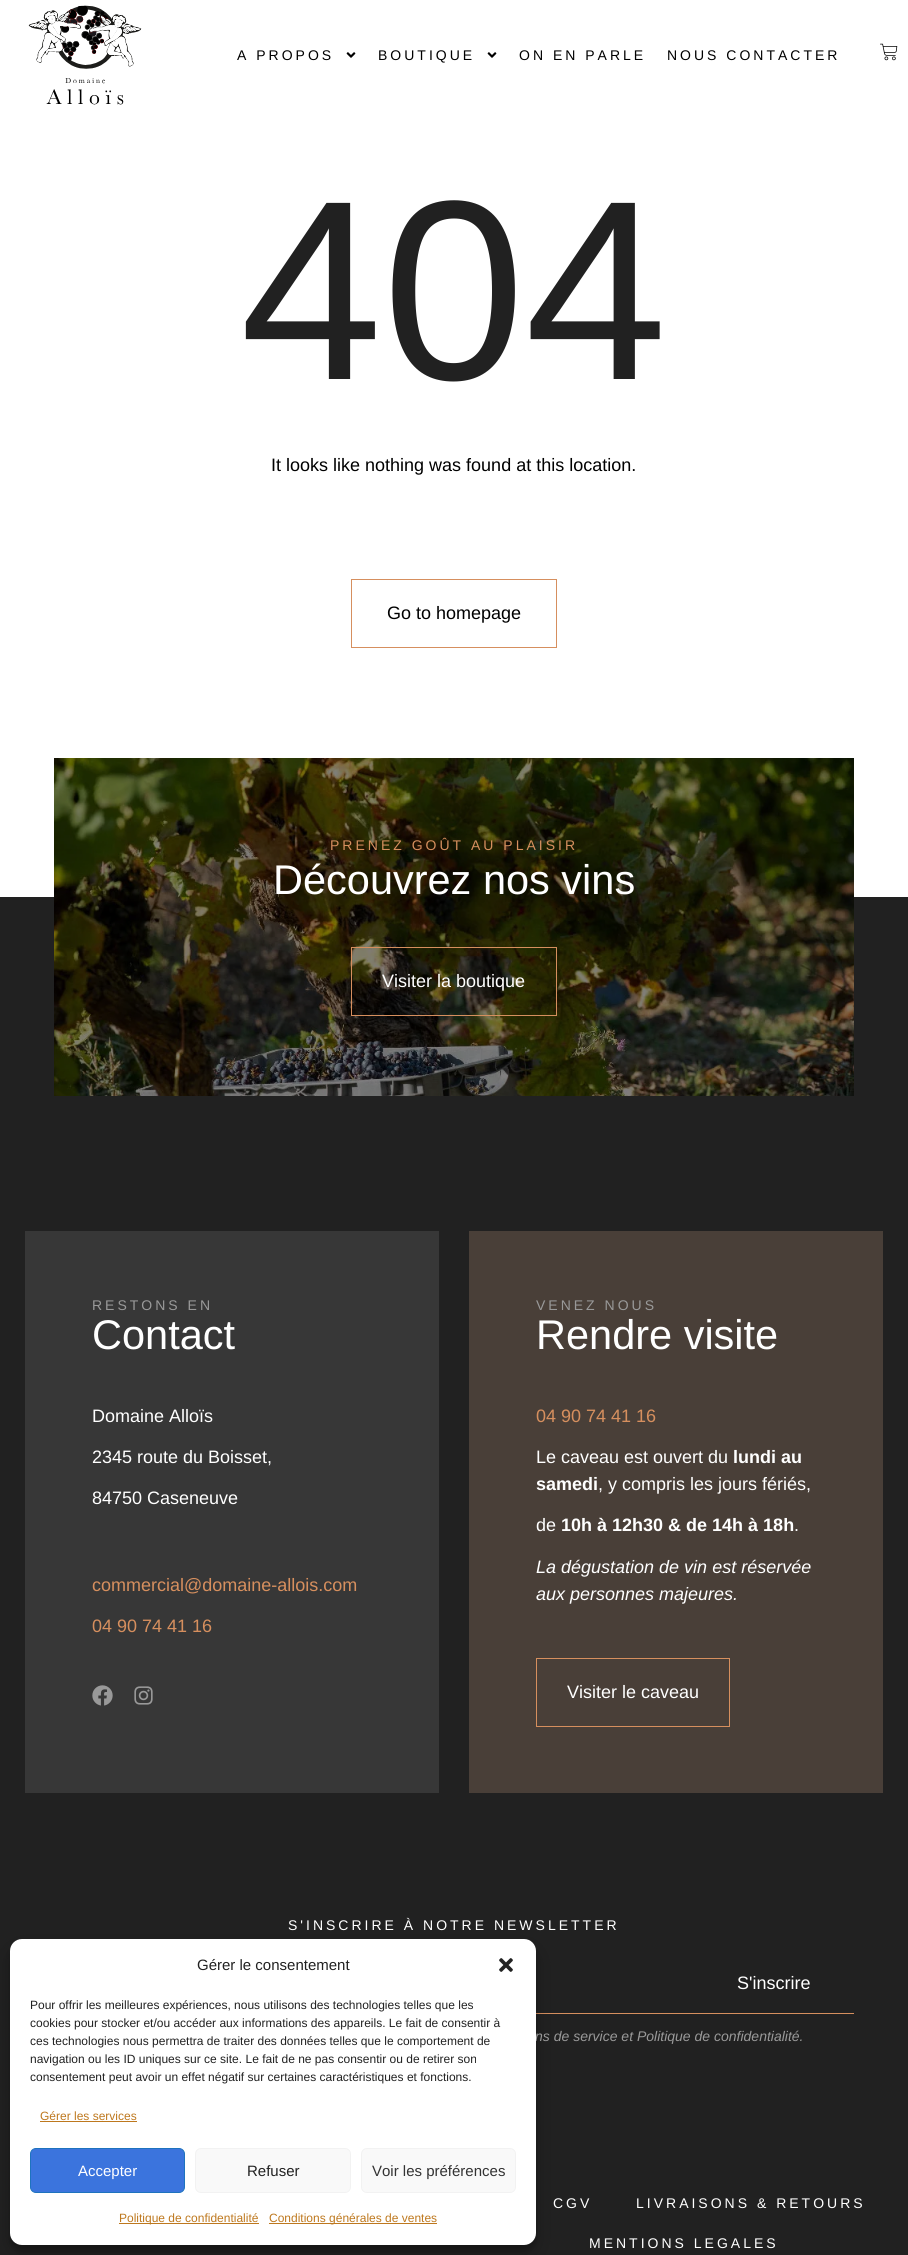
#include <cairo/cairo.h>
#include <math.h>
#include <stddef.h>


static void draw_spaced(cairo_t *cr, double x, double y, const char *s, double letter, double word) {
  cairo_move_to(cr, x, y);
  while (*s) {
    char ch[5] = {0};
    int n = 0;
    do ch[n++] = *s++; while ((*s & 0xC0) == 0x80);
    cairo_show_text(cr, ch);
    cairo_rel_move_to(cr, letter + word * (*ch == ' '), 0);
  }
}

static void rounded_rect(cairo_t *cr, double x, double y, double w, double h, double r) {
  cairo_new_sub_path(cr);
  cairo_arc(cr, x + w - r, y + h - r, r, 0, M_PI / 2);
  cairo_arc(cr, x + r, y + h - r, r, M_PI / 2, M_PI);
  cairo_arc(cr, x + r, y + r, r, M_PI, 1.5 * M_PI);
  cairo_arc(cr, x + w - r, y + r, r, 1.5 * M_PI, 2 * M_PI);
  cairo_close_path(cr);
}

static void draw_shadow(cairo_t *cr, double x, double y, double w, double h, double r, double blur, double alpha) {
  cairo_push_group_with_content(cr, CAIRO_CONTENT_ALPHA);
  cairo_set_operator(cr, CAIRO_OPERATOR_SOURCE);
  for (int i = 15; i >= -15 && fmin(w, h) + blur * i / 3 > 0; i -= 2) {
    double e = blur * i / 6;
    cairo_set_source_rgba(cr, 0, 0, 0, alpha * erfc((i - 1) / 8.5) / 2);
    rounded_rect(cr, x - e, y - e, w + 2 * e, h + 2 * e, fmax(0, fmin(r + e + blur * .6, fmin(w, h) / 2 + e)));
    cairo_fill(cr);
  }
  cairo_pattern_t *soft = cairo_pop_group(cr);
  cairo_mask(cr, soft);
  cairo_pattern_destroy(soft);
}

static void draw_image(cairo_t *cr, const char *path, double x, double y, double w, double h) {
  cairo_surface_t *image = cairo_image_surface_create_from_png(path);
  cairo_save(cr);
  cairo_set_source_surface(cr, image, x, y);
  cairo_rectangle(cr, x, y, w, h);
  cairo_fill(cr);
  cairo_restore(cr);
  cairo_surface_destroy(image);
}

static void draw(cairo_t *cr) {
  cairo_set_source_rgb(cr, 1, 1, 1);
  cairo_paint(cr);
  draw_image(cr, "images/1.png", 28, 5, 114, 100);
  draw_image(cr, "images/2.png", 346, 52, 10, 6);
  draw_image(cr, "images/2.png", 487, 52, 10, 6);
  draw_image(cr, "images/3.png", 880, 43, 18, 18);
  cairo_rectangle(cr, 351.5, 579.5, 205, 68);
  cairo_set_source_rgb(cr, 214 / 255.0, 143 / 255.0, 94 / 255.0);
  cairo_set_line_width(cr, 1);
  cairo_stroke(cr);
  cairo_set_source_rgb(cr, 33 / 255.0, 33 / 255.0, 33 / 255.0);
  cairo_rectangle(cr, 0, 897, 908, 1358);
  cairo_fill(cr);
  draw_image(cr, "images/4.png", 54, 758, 800, 338);
  cairo_rectangle(cr, 351.5, 947.5, 205, 68);
  cairo_set_source_rgb(cr, 214 / 255.0, 143 / 255.0, 94 / 255.0);
  cairo_stroke(cr);
  cairo_set_source_rgb(cr, 55 / 255.0, 55 / 255.0, 55 / 255.0);
  cairo_rectangle(cr, 25, 1231, 414, 562);
  cairo_fill(cr);
  draw_image(cr, "images/5.png", 92, 1685, 21, 21);
  draw_image(cr, "images/6.png", 134, 1686, 19, 19);
  cairo_set_source_rgb(cr, 73 / 255.0, 63 / 255.0, 56 / 255.0);
  cairo_rectangle(cr, 469, 1231, 414, 562);
  cairo_fill(cr);
  cairo_rectangle(cr, 536.5, 1658.5, 193, 68);
  cairo_set_source_rgb(cr, 214 / 255.0, 143 / 255.0, 94 / 255.0);
  cairo_stroke(cr);
  cairo_rectangle(cr, 536, 2013, 318, 1);
  cairo_fill(cr);
  cairo_set_source_rgb(cr, 0, 0, 0);
  draw_shadow(cr, 10, 1945, 526, 306, 12, 3, 0.23);
  draw_shadow(cr, 10, 1949, 526, 306, 12, 10, 0.19);
  cairo_select_font_face(cr, "Liberation Sans", CAIRO_FONT_SLANT_NORMAL, CAIRO_FONT_WEIGHT_NORMAL);
  cairo_set_font_size(cr, 14);
  cairo_set_source_rgb(cr, 0, 0, 0);
  draw_spaced(cr, 237, 60, "A PROPOS", 3, 0);
  draw_spaced(cr, 378, 60, "BOUTIQUE", 3, 0);
  draw_spaced(cr, 519, 60, "ON EN PARLE", 3, 0);
  draw_spaced(cr, 667, 60, "NOUS CONTACTER", 3, 0);
  cairo_set_font_size(cr, 256);
  cairo_set_source_rgb(cr, 33 / 255.0, 33 / 255.0, 33 / 255.0);
  cairo_move_to(cr, 240, 379);
  cairo_show_text(cr, "404");
  cairo_set_font_size(cr, 18);
  cairo_set_source_rgb(cr, 0, 0, 0);
  cairo_move_to(cr, 271, 471);
  cairo_show_text(cr, "It looks like nothing was found at this location.");
  cairo_move_to(cr, 387, 619);
  cairo_show_text(cr, "Go to homepage");
  cairo_set_font_size(cr, 14);
  cairo_set_source_rgb(cr, 214 / 255.0, 143 / 255.0, 94 / 255.0);
  draw_spaced(cr, 330, 850, "PRENEZ GOÛT AU PLAISIR", 3, 0);
  cairo_set_font_size(cr, 41.5);
  cairo_set_source_rgb(cr, 1, 1, 1);
  cairo_move_to(cr, 273, 894);
  cairo_show_text(cr, "Découvrez nos vins");
  cairo_set_font_size(cr, 18);
  cairo_move_to(cr, 382, 987);
  cairo_show_text(cr, "Visiter la boutique");
  cairo_set_font_size(cr, 14);
  cairo_set_source_rgb(cr, 153 / 255.0, 153 / 255.0, 153 / 255.0);
  draw_spaced(cr, 92, 1310, "RESTONS EN", 3, 0);
  cairo_set_font_size(cr, 41.5);
  cairo_set_source_rgb(cr, 1, 1, 1);
  cairo_move_to(cr, 92, 1349);
  cairo_show_text(cr, "Contact");
  cairo_set_font_size(cr, 18);
  cairo_move_to(cr, 92, 1422);
  cairo_show_text(cr, "Domaine Alloïs");
  cairo_move_to(cr, 92, 1463);
  cairo_show_text(cr, "2345 route du Boisset,");
  cairo_move_to(cr, 92, 1504);
  cairo_show_text(cr, "84750 Caseneuve");
  cairo_set_source_rgb(cr, 214 / 255.0, 143 / 255.0, 94 / 255.0);
  cairo_move_to(cr, 92, 1591);
  cairo_show_text(cr, "commercial@domaine-allois.com");
  cairo_move_to(cr, 92, 1632);
  cairo_show_text(cr, "04 90 74 41 16");
  cairo_set_font_size(cr, 14);
  cairo_set_source_rgb(cr, 153 / 255.0, 153 / 255.0, 153 / 255.0);
  draw_spaced(cr, 536, 1310, "VENEZ NOUS", 3, 0);
  cairo_set_font_size(cr, 41.5);
  cairo_set_source_rgb(cr, 1, 1, 1);
  cairo_move_to(cr, 536, 1349);
  cairo_show_text(cr, "Rendre visite");
  cairo_set_font_size(cr, 18);
  cairo_set_source_rgb(cr, 214 / 255.0, 143 / 255.0, 94 / 255.0);
  cairo_move_to(cr, 536, 1422);
  cairo_show_text(cr, "04 90 74 41 16");
  cairo_set_source_rgb(cr, 1, 1, 1);
  cairo_move_to(cr, 536, 1463);
  cairo_show_text(cr, "Le caveau est ouvert du");
  cairo_select_font_face(cr, "Liberation Sans", CAIRO_FONT_SLANT_NORMAL, CAIRO_FONT_WEIGHT_BOLD);
  cairo_move_to(cr, 733, 1463);
  cairo_show_text(cr, "lundi au");
  cairo_move_to(cr, 536, 1490);
  cairo_show_text(cr, "samedi");
  cairo_select_font_face(cr, "Liberation Sans", CAIRO_FONT_SLANT_NORMAL, CAIRO_FONT_WEIGHT_NORMAL);
  cairo_move_to(cr, 598, 1490);
  cairo_show_text(cr, ", y compris les jours fériés,");
  cairo_move_to(cr, 536, 1531);
  cairo_show_text(cr, "de");
  cairo_select_font_face(cr, "Liberation Sans", CAIRO_FONT_SLANT_NORMAL, CAIRO_FONT_WEIGHT_BOLD);
  cairo_move_to(cr, 561, 1531);
  cairo_show_text(cr, "10h à 12h30 & de 14h à 18h");
  cairo_select_font_face(cr, "Liberation Sans", CAIRO_FONT_SLANT_NORMAL, CAIRO_FONT_WEIGHT_NORMAL);
  cairo_move_to(cr, 794, 1531);
  cairo_show_text(cr, ".");
  cairo_select_font_face(cr, "Liberation Sans", CAIRO_FONT_SLANT_ITALIC, CAIRO_FONT_WEIGHT_NORMAL);
  cairo_move_to(cr, 536, 1573);
  cairo_show_text(cr, "La dégustation de vin est réservée");
  cairo_move_to(cr, 536, 1600);
  cairo_show_text(cr, "aux personnes majeures.");
  cairo_select_font_face(cr, "Liberation Sans", CAIRO_FONT_SLANT_NORMAL, CAIRO_FONT_WEIGHT_NORMAL);
  cairo_move_to(cr, 567, 1698);
  cairo_show_text(cr, "Visiter le caveau");
  cairo_set_font_size(cr, 14);
  draw_spaced(cr, 288, 1930, "S'INSCRIRE À NOTRE NEWSLETTER", 3, 0);
  cairo_set_font_size(cr, 18);
  cairo_move_to(cr, 737, 1989);
  cairo_show_text(cr, "S'inscrire");
  cairo_select_font_face(cr, "Liberation Sans", CAIRO_FONT_SLANT_ITALIC, CAIRO_FONT_WEIGHT_NORMAL);
  cairo_set_font_size(cr, 14);
  cairo_set_source_rgb(cr, 153 / 255.0, 153 / 255.0, 153 / 255.0);
  cairo_move_to(cr, 535, 2041);
  cairo_show_text(cr, "ns de service et Politique de confidentialité.");
  cairo_select_font_face(cr, "Liberation Sans", CAIRO_FONT_SLANT_NORMAL, CAIRO_FONT_WEIGHT_NORMAL);
  cairo_set_source_rgb(cr, 1, 1, 1);
  draw_spaced(cr, 553, 2208, "CGV", 3, 0);
  draw_spaced(cr, 636, 2208, "LIVRAISONS & RETOURS", 3, 0);
  draw_spaced(cr, 589, 2248, "MENTIONS LEGALES", 3, 0);
  rounded_rect(cr, 10, 1939, 526, 306, 12);
  cairo_fill(cr);
  cairo_set_font_size(cr, 15);
  cairo_set_source_rgb(cr, 33 / 255.0, 33 / 255.0, 33 / 255.0);
  cairo_move_to(cr, 197, 1970);
  cairo_show_text(cr, "Gérer le consentement");
  draw_image(cr, "images/7.png", 499, 1958, 14, 14);
  cairo_set_font_size(cr, 12);
  cairo_move_to(cr, 30, 2009);
  cairo_show_text(cr, "Pour offrir les meilleures expériences, nous utilisons des technologies telles que les");
  cairo_move_to(cr, 30, 2027);
  cairo_show_text(cr, "cookies pour stocker et/ou accéder aux informations des appareils. Le fait de consentir à");
  cairo_move_to(cr, 30, 2045);
  cairo_show_text(cr, "ces technologies nous permettra de traiter des données telles que le comportement de");
  cairo_move_to(cr, 30, 2063);
  cairo_show_text(cr, "navigation ou les ID uniques sur ce site. Le fait de ne pas consentir ou de retirer son");
  cairo_move_to(cr, 30, 2081);
  cairo_show_text(cr, "consentement peut avoir un effet négatif sur certaines caractéristiques et fonctions.");
  cairo_set_source_rgb(cr, 190 / 255.0, 120 / 255.0, 30 / 255.0);
  cairo_move_to(cr, 40, 2120);
  cairo_show_text(cr, "Gérer les services");
  cairo_rectangle(cr, 40, 2121, 97, 1);
  cairo_fill(cr);
  cairo_set_source_rgb(cr, 59 / 255.0, 116 / 255.0, 221 / 255.0);
  rounded_rect(cr, 30.5, 2148.5, 154, 44, 5.5);
  cairo_fill_preserve(cr);
  cairo_set_source_rgb(cr, 30 / 255.0, 115 / 255.0, 190 / 255.0);
  cairo_stroke(cr);
  cairo_set_font_size(cr, 15);
  cairo_set_source_rgb(cr, 1, 1, 1);
  cairo_move_to(cr, 78, 2176);
  cairo_show_text(cr, "Accepter");
  cairo_set_source_rgb(cr, 249 / 255.0, 249 / 255.0, 249 / 255.0);
  rounded_rect(cr, 195.5, 2148.5, 155, 44, 5.5);
  cairo_fill_preserve(cr);
  cairo_set_source_rgb(cr, 242 / 255.0, 242 / 255.0, 242 / 255.0);
  cairo_stroke(cr);
  cairo_set_source_rgb(cr, 33 / 255.0, 33 / 255.0, 33 / 255.0);
  cairo_move_to(cr, 247, 2176);
  cairo_show_text(cr, "Refuser");
  cairo_set_source_rgb(cr, 249 / 255.0, 249 / 255.0, 249 / 255.0);
  rounded_rect(cr, 361.5, 2148.5, 154, 44, 5.5);
  cairo_fill_preserve(cr);
  cairo_set_source_rgb(cr, 242 / 255.0, 242 / 255.0, 242 / 255.0);
  cairo_stroke(cr);
  cairo_set_source_rgb(cr, 51 / 255.0, 51 / 255.0, 51 / 255.0);
  cairo_move_to(cr, 372, 2176);
  cairo_show_text(cr, "Voir les préférences");
  cairo_set_source_rgb(cr, 190 / 255.0, 120 / 255.0, 30 / 255.0);
  cairo_rectangle(cr, 119, 2223, 140, 1);
  cairo_fill(cr);
  cairo_set_font_size(cr, 12);
  cairo_move_to(cr, 119, 2222);
  cairo_show_text(cr, "Politique de confidentialité");
  cairo_rectangle(cr, 269, 2223, 168, 1);
  cairo_fill(cr);
  cairo_move_to(cr, 269, 2222);
  cairo_show_text(cr, "Conditions générales de ventes");
}

int main(void) {
  cairo_surface_t *surface = cairo_image_surface_create(CAIRO_FORMAT_RGB24, 908, 2255);
  cairo_t *cr = cairo_create(surface);
  cairo_font_options_t *options = cairo_font_options_create();
  cairo_font_options_set_hint_metrics(options, CAIRO_HINT_METRICS_OFF);
  cairo_font_options_set_hint_style(options, CAIRO_HINT_STYLE_NONE);
  cairo_set_font_options(cr, options);
  cairo_set_miter_limit(cr, 4);
  draw(cr);
  cairo_surface_write_to_png(surface, "out.png");
  cairo_font_options_destroy(options);
  cairo_destroy(cr);
  cairo_surface_destroy(surface);
  return 0;
}
